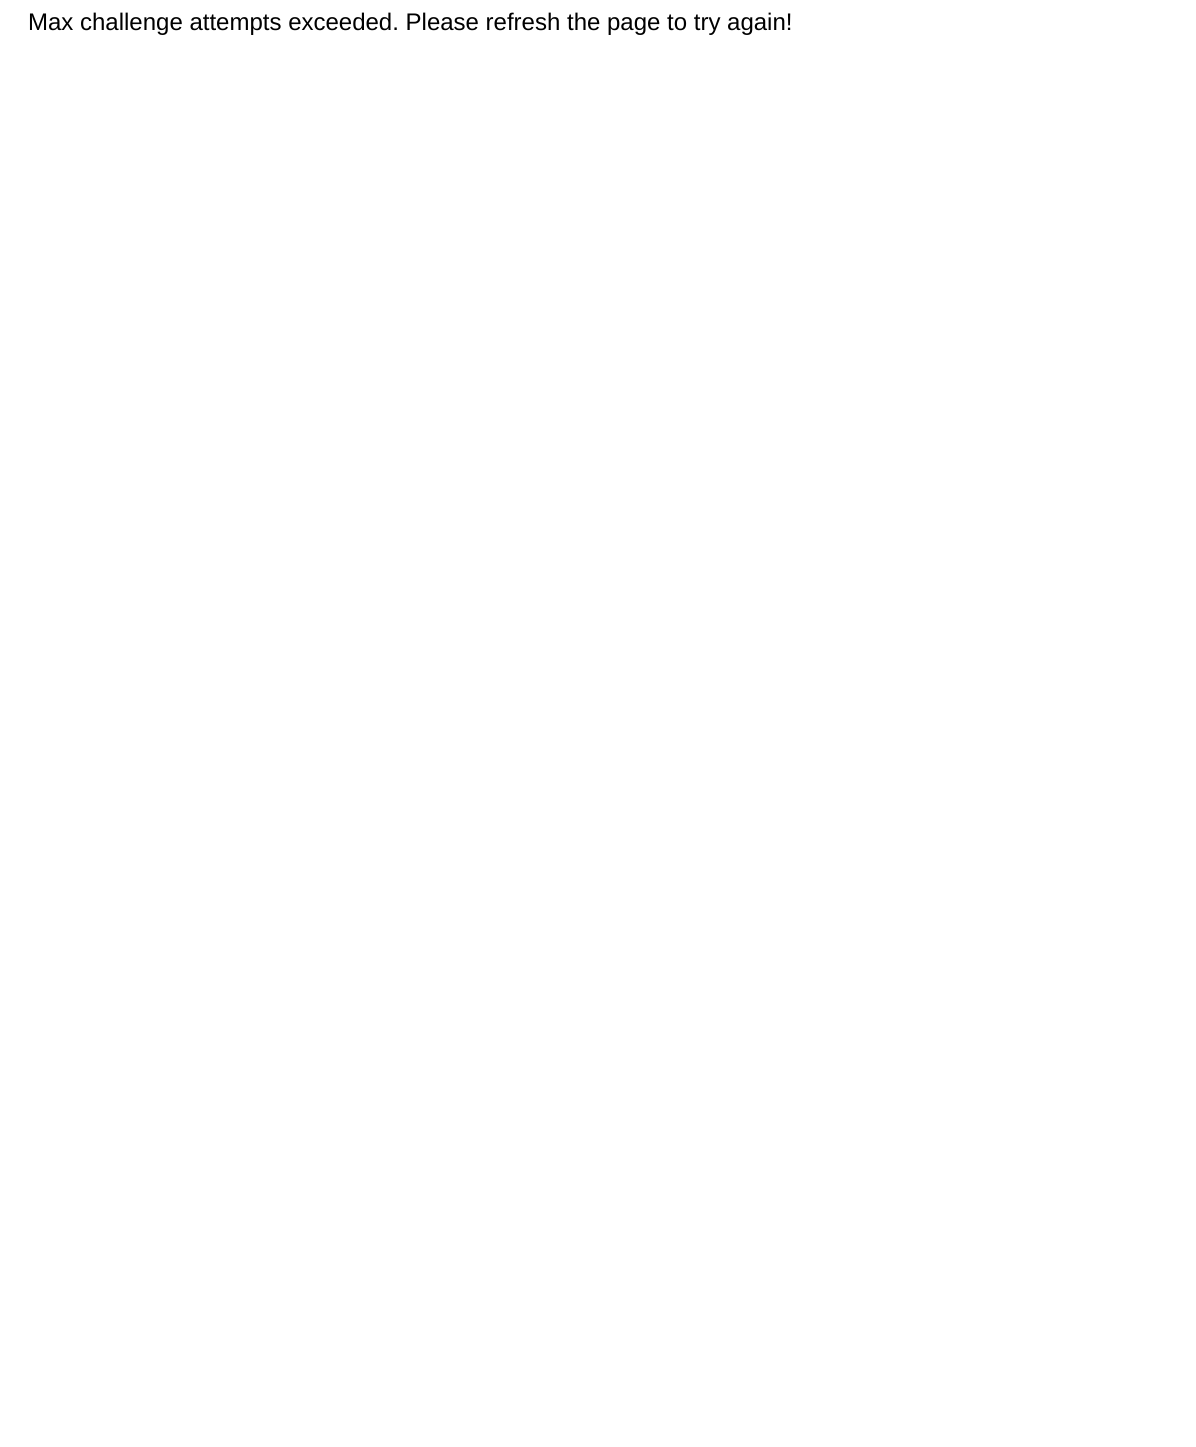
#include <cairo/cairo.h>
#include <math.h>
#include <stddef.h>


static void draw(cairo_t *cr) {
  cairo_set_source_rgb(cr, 1, 1, 1);
  cairo_paint(cr);
  cairo_select_font_face(cr, "Liberation Sans", CAIRO_FONT_SLANT_NORMAL, CAIRO_FONT_WEIGHT_NORMAL);
  cairo_set_font_size(cr, 24);
  cairo_set_source_rgb(cr, 0, 0, 0);
  cairo_move_to(cr, 28, 30);
  cairo_show_text(cr, "Max challenge attempts exceeded. Please refresh the page to try again!");
}

int main(void) {
  cairo_surface_t *surface = cairo_image_surface_create(CAIRO_FORMAT_RGB24, 1196, 1447);
  cairo_t *cr = cairo_create(surface);
  cairo_font_options_t *options = cairo_font_options_create();
  cairo_font_options_set_hint_metrics(options, CAIRO_HINT_METRICS_OFF);
  cairo_font_options_set_hint_style(options, CAIRO_HINT_STYLE_NONE);
  cairo_set_font_options(cr, options);
  cairo_set_miter_limit(cr, 4);
  draw(cr);
  cairo_surface_write_to_png(surface, "out.png");
  cairo_font_options_destroy(options);
  cairo_destroy(cr);
  cairo_surface_destroy(surface);
  return 0;
}
